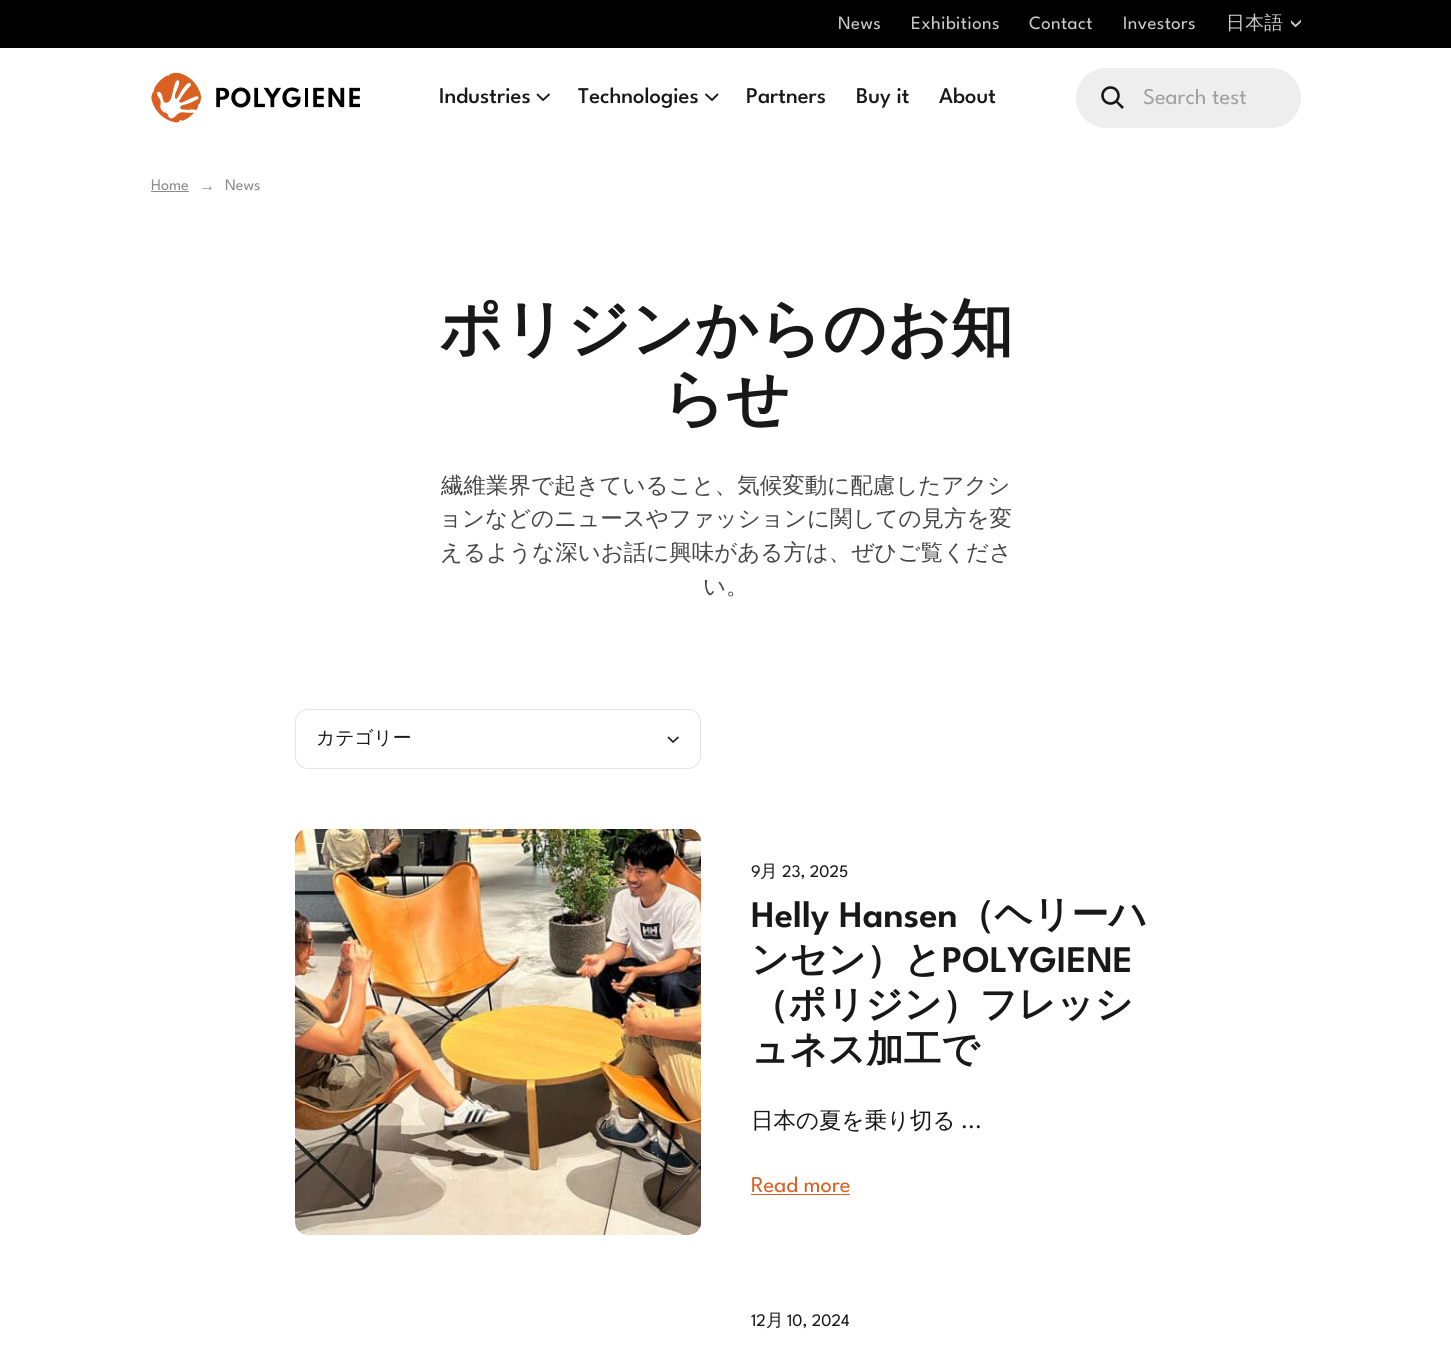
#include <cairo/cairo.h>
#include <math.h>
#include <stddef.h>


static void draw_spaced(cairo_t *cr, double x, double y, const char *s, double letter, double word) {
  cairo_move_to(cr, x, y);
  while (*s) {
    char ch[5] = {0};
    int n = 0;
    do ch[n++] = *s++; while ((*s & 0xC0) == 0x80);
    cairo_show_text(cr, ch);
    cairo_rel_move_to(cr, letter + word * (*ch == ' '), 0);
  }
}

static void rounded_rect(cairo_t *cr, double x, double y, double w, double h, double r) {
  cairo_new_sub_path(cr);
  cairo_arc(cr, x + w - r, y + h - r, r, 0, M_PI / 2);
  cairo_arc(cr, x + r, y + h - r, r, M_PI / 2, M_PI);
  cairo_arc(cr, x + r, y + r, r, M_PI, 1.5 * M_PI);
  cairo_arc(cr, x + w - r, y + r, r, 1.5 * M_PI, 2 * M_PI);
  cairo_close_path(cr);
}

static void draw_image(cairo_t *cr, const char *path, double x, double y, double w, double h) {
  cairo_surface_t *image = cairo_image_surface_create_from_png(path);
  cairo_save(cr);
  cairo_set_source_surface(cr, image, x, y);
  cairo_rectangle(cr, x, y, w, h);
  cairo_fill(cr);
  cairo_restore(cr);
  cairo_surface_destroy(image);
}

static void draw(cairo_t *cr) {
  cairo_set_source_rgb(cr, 1, 1, 1);
  cairo_paint(cr);
  cairo_set_source_rgb(cr, 0, 0, 0);
  cairo_rectangle(cr, 0, 0, 1451, 48);
  cairo_fill(cr);
  draw_image(cr, "images/1.png", 151, 73, 209, 50);
  cairo_save(cr);
  cairo_rectangle(cr, 1291, 19, 10, 10);
  cairo_clip(cr);
  cairo_new_path(cr);
  cairo_move_to(cr, 1289.5, 20);
  cairo_line_to(cr, 1295.5, 26);
  cairo_line_to(cr, 1302, 20);
  cairo_set_source_rgb(cr, 204 / 255.0, 204 / 255.0, 204 / 255.0);
  cairo_set_line_width(cr, 1.9);
  cairo_stroke(cr);
  cairo_restore(cr);
  cairo_new_path(cr);
  cairo_move_to(cr, 537, 94);
  cairo_line_to(cr, 543, 100);
  cairo_line_to(cr, 549.5, 94);
  cairo_set_source_rgb(cr, 24 / 255.0, 24 / 255.0, 24 / 255.0);
  cairo_set_line_width(cr, 1.9);
  cairo_stroke(cr);
  cairo_new_path(cr);
  cairo_move_to(cr, 705.5, 94);
  cairo_line_to(cr, 712, 100);
  cairo_line_to(cr, 718, 94);
  cairo_stroke(cr);
  cairo_set_source_rgb(cr, 238 / 255.0, 238 / 255.0, 238 / 255.0);
  rounded_rect(cr, 1076, 68, 225, 60, 30);
  cairo_fill(cr);
  cairo_arc(cr, 1110.5, 95.5, 8, 0, 2 * M_PI);
  cairo_set_source_rgb(cr, 24 / 255.0, 24 / 255.0, 24 / 255.0);
  cairo_set_line_width(cr, 2.6);
  cairo_stroke(cr);
  cairo_new_path(cr);
  cairo_move_to(cr, 1115.5, 102);
  cairo_line_to(cr, 1117, 100.5);
  cairo_line_to(cr, 1124, 107);
  cairo_line_to(cr, 1122, 109);
  cairo_close_path(cr);
  cairo_fill(cr);
  cairo_set_source_rgb(cr, 140 / 255.0, 140 / 255.0, 140 / 255.0);
  cairo_rectangle(cr, 151, 191, 38, 1);
  cairo_fill(cr);
  rounded_rect(cr, 295.5, 709.5, 405, 59, 12.5);
  cairo_set_source_rgb(cr, 227 / 255.0, 227 / 255.0, 227 / 255.0);
  cairo_set_line_width(cr, 1);
  cairo_stroke(cr);
  cairo_new_path(cr);
  cairo_move_to(cr, 668, 737);
  cairo_line_to(cr, 673, 742);
  cairo_line_to(cr, 678.5, 737);
  cairo_set_source_rgb(cr, 24 / 255.0, 24 / 255.0, 24 / 255.0);
  cairo_set_line_width(cr, 1.6);
  cairo_stroke(cr);
  draw_image(cr, "images/2.png", 295, 829, 406, 406);
  cairo_set_source_rgb(cr, 218 / 255.0, 96 / 255.0, 34 / 255.0);
  cairo_rectangle(cr, 751, 1194, 99, 1);
  cairo_fill(cr);
  cairo_select_font_face(cr, "League Spartan", CAIRO_FONT_SLANT_NORMAL, CAIRO_FONT_WEIGHT_NORMAL);
  cairo_set_font_size(cr, 18.75);
  cairo_set_source_rgb(cr, 204 / 255.0, 204 / 255.0, 204 / 255.0);
  draw_spaced(cr, 838, 29, "News", 0.4, 0);
  draw_spaced(cr, 911, 29, "Exhibitions", 0.4, 0);
  draw_spaced(cr, 1029, 29, "Contact", 0.4, 0);
  draw_spaced(cr, 1123, 29, "Investors", 0.4, 0);
  cairo_select_font_face(cr, "WenQuanYi Zen Hei Medium", CAIRO_FONT_SLANT_NORMAL, CAIRO_FONT_WEIGHT_NORMAL);
  draw_spaced(cr, 1226, 29, "日本語", 0.4, 0);
  cairo_select_font_face(cr, "League Spartan Medium", CAIRO_FONT_SLANT_NORMAL, CAIRO_FONT_WEIGHT_NORMAL);
  cairo_set_font_size(cr, 22.5);
  cairo_set_source_rgb(cr, 24 / 255.0, 24 / 255.0, 24 / 255.0);
  cairo_move_to(cr, 439, 103);
  cairo_show_text(cr, "Industries");
  cairo_move_to(cr, 578, 103);
  cairo_show_text(cr, "Technologies");
  cairo_move_to(cr, 746, 103);
  cairo_show_text(cr, "Partners");
  cairo_move_to(cr, 856, 103);
  cairo_show_text(cr, "Buy it");
  cairo_move_to(cr, 939, 103);
  cairo_show_text(cr, "About");
  cairo_save(cr);
  cairo_rectangle(cr, 1144, 89, 135, 21);
  cairo_clip(cr);
  cairo_select_font_face(cr, "League Spartan", CAIRO_FONT_SLANT_NORMAL, CAIRO_FONT_WEIGHT_NORMAL);
  cairo_set_source_rgb(cr, 161 / 255.0, 161 / 255.0, 161 / 255.0);
  cairo_move_to(cr, 1143, 104);
  cairo_show_text(cr, "Search test");
  cairo_restore(cr);
  cairo_select_font_face(cr, "League Spartan", CAIRO_FONT_SLANT_NORMAL, CAIRO_FONT_WEIGHT_NORMAL);
  cairo_set_font_size(cr, 16);
  cairo_set_source_rgb(cr, 140 / 255.0, 140 / 255.0, 140 / 255.0);
  cairo_move_to(cr, 151, 190);
  cairo_show_text(cr, "Home");
  cairo_select_font_face(cr, "Liberation Sans", CAIRO_FONT_SLANT_NORMAL, CAIRO_FONT_WEIGHT_NORMAL);
  cairo_move_to(cr, 199, 191);
  cairo_show_text(cr, "→");
  cairo_select_font_face(cr, "League Spartan", CAIRO_FONT_SLANT_NORMAL, CAIRO_FONT_WEIGHT_NORMAL);
  cairo_move_to(cr, 225, 190);
  cairo_show_text(cr, "News");
  cairo_select_font_face(cr, "WenQuanYi Zen Hei", CAIRO_FONT_SLANT_NORMAL, CAIRO_FONT_WEIGHT_BOLD);
  cairo_set_font_size(cr, 62.5);
  cairo_set_source_rgb(cr, 24 / 255.0, 24 / 255.0, 24 / 255.0);
  cairo_move_to(cr, 439, 350);
  cairo_show_text(cr, "ポリジンからのお知");
  cairo_move_to(cr, 662, 420);
  cairo_show_text(cr, "らせ");
  cairo_select_font_face(cr, "WenQuanYi Zen Hei Medium", CAIRO_FONT_SLANT_NORMAL, CAIRO_FONT_WEIGHT_NORMAL);
  cairo_set_font_size(cr, 22.5);
  cairo_set_source_rgb(cr, 70 / 255.0, 70 / 255.0, 70 / 255.0);
  cairo_move_to(cr, 441, 493);
  cairo_show_text(cr, "繊維業界で起きていること、気候変動に配慮したアクシ");
  cairo_move_to(cr, 439, 526);
  cairo_show_text(cr, "ョンなどのニュースやファッションに関しての見方を変");
  cairo_move_to(cr, 440, 560);
  cairo_show_text(cr, "えるような深いお話に興味がある方は、ぜひご覧くださ");
  cairo_move_to(cr, 703, 594);
  cairo_show_text(cr, "い。");
  cairo_set_font_size(cr, 18.75);
  cairo_set_source_rgb(cr, 24 / 255.0, 24 / 255.0, 24 / 255.0);
  cairo_move_to(cr, 316, 744);
  cairo_show_text(cr, "カテゴリー");
  cairo_select_font_face(cr, "League Spartan", CAIRO_FONT_SLANT_NORMAL, CAIRO_FONT_WEIGHT_NORMAL);
  cairo_set_font_size(cr, 17.5);
  cairo_move_to(cr, 751, 877);
  cairo_show_text(cr, "9");
  cairo_select_font_face(cr, "WenQuanYi Zen Hei Medium", CAIRO_FONT_SLANT_NORMAL, CAIRO_FONT_WEIGHT_NORMAL);
  cairo_move_to(cr, 760, 877);
  cairo_show_text(cr, "月");
  cairo_select_font_face(cr, "League Spartan", CAIRO_FONT_SLANT_NORMAL, CAIRO_FONT_WEIGHT_NORMAL);
  cairo_move_to(cr, 782, 877);
  cairo_show_text(cr, "23, 2025");
  cairo_select_font_face(cr, "League Spartan SemiBold", CAIRO_FONT_SLANT_NORMAL, CAIRO_FONT_WEIGHT_NORMAL);
  cairo_set_font_size(cr, 37.5);
  cairo_move_to(cr, 751, 927);
  cairo_show_text(cr, "Helly Hansen");
  cairo_select_font_face(cr, "WenQuanYi Zen Hei", CAIRO_FONT_SLANT_NORMAL, CAIRO_FONT_WEIGHT_BOLD);
  cairo_move_to(cr, 957, 927);
  cairo_show_text(cr, "（ヘリーハ");
  cairo_move_to(cr, 751, 972);
  cairo_show_text(cr, "ンセン）と");
  cairo_select_font_face(cr, "League Spartan SemiBold", CAIRO_FONT_SLANT_NORMAL, CAIRO_FONT_WEIGHT_NORMAL);
  cairo_move_to(cr, 942, 972);
  cairo_show_text(cr, "POLYGIENE");
  cairo_select_font_face(cr, "WenQuanYi Zen Hei", CAIRO_FONT_SLANT_NORMAL, CAIRO_FONT_WEIGHT_BOLD);
  cairo_move_to(cr, 751, 1017);
  cairo_show_text(cr, "（ポリジン）フレッシ");
  cairo_move_to(cr, 751, 1062);
  cairo_show_text(cr, "ュネス加工で");
  cairo_select_font_face(cr, "WenQuanYi Zen Hei Medium", CAIRO_FONT_SLANT_NORMAL, CAIRO_FONT_WEIGHT_NORMAL);
  cairo_set_font_size(cr, 22.5);
  cairo_move_to(cr, 751, 1128);
  cairo_show_text(cr, "日本の夏を乗り切る");
  cairo_select_font_face(cr, "League Spartan", CAIRO_FONT_SLANT_NORMAL, CAIRO_FONT_WEIGHT_NORMAL);
  cairo_move_to(cr, 961, 1128);
  cairo_show_text(cr, "...");
  cairo_set_source_rgb(cr, 218 / 255.0, 96 / 255.0, 34 / 255.0);
  cairo_move_to(cr, 751, 1192);
  cairo_show_text(cr, "Read more");
  cairo_set_font_size(cr, 17.5);
  cairo_set_source_rgb(cr, 24 / 255.0, 24 / 255.0, 24 / 255.0);
  cairo_move_to(cr, 751, 1326);
  cairo_show_text(cr, "12");
  cairo_select_font_face(cr, "WenQuanYi Zen Hei Medium", CAIRO_FONT_SLANT_NORMAL, CAIRO_FONT_WEIGHT_NORMAL);
  cairo_move_to(cr, 766, 1326);
  cairo_show_text(cr, "月");
  cairo_select_font_face(cr, "League Spartan", CAIRO_FONT_SLANT_NORMAL, CAIRO_FONT_WEIGHT_NORMAL);
  cairo_move_to(cr, 787, 1326);
  cairo_show_text(cr, "10, 2024");
}

int main(void) {
  cairo_surface_t *surface = cairo_image_surface_create(CAIRO_FORMAT_RGB24, 1451, 1363);
  cairo_t *cr = cairo_create(surface);
  cairo_font_options_t *options = cairo_font_options_create();
  cairo_font_options_set_hint_metrics(options, CAIRO_HINT_METRICS_OFF);
  cairo_font_options_set_hint_style(options, CAIRO_HINT_STYLE_NONE);
  cairo_set_font_options(cr, options);
  cairo_set_miter_limit(cr, 4);
  draw(cr);
  cairo_surface_write_to_png(surface, "out.png");
  cairo_font_options_destroy(options);
  cairo_destroy(cr);
  cairo_surface_destroy(surface);
  return 0;
}
